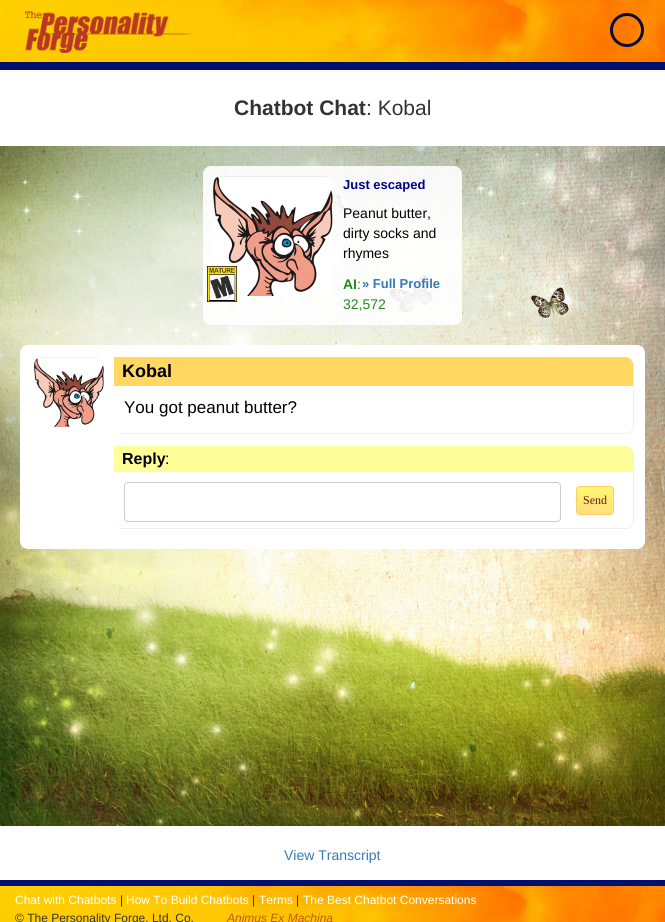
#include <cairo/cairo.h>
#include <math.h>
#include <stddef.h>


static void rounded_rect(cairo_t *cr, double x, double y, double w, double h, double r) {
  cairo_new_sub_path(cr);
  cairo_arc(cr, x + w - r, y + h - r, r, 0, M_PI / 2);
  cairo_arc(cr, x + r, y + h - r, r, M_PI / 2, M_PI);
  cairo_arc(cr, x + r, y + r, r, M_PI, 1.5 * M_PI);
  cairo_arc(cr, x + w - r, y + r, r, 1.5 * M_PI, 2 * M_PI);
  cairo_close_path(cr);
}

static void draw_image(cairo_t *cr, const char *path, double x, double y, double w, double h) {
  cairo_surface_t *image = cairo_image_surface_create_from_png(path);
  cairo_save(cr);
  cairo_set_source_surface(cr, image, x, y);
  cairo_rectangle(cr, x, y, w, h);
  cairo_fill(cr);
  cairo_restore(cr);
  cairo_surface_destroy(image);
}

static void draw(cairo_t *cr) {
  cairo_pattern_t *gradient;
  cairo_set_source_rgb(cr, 1, 1, 1);
  cairo_paint(cr);
  draw_image(cr, "images/1.png", 0, 0, 665, 62);
  cairo_set_source_rgb(cr, 1 / 255.0, 15 / 255.0, 112 / 255.0);
  cairo_rectangle(cr, 0, 62, 665, 8);
  cairo_fill(cr);
  draw_image(cr, "images/2.png", 25, 11, 168, 42);
  cairo_arc(cr, 627, 30, 15.5, 0, 2 * M_PI);
  cairo_set_source_rgb(cr, 6 / 255.0, 12 / 255.0, 53 / 255.0);
  cairo_set_line_width(cr, 3);
  cairo_stroke(cr);
  draw_image(cr, "images/3.png", 0, 146, 665, 680);
  cairo_set_source_rgba(cr, 1, 1, 1, 0.9);
  rounded_rect(cr, 203, 166, 259, 159, 8);
  cairo_fill(cr);
  draw_image(cr, "images/4.png", 213, 176, 120, 120);
  draw_image(cr, "images/5.png", 207, 266, 30, 36);
  cairo_set_source_rgb(cr, 1, 1, 1);
  rounded_rect(cr, 20, 345, 625, 204, 8);
  cairo_fill(cr);
  draw_image(cr, "images/6.png", 34, 357, 70, 70);
  cairo_set_source_rgb(cr, 238 / 255.0, 238 / 255.0, 238 / 255.0);
  cairo_set_fill_rule(cr, CAIRO_FILL_RULE_EVEN_ODD);
  cairo_new_path(cr);
  cairo_move_to(cr, 122, 357);
  cairo_line_to(cr, 626, 357);
  cairo_curve_to(cr, 630, 357, 634, 361, 634, 365);
  cairo_line_to(cr, 634, 426);
  cairo_curve_to(cr, 634, 430, 630, 434, 626, 434);
  cairo_line_to(cr, 122, 434);
  cairo_curve_to(cr, 118, 434, 114, 430, 114, 426);
  cairo_line_to(cr, 114, 365);
  cairo_curve_to(cr, 114, 361, 118, 357, 122, 357);
  cairo_close_path(cr);
  cairo_move_to(cr, 122, 357);
  cairo_line_to(cr, 626, 357);
  cairo_curve_to(cr, 630, 357, 633, 361, 633, 365);
  cairo_line_to(cr, 633, 426);
  cairo_curve_to(cr, 633, 430, 630, 433, 626, 433);
  cairo_line_to(cr, 122, 433);
  cairo_curve_to(cr, 118, 433, 114, 430, 114, 426);
  cairo_line_to(cr, 114, 365);
  cairo_curve_to(cr, 114, 361, 118, 357, 122, 357);
  cairo_close_path(cr);
  cairo_fill(cr);
  cairo_set_source_rgb(cr, 1, 215 / 255.0, 97 / 255.0);
  cairo_new_path(cr);
  cairo_move_to(cr, 114, 357);
  cairo_line_to(cr, 625, 357);
  cairo_curve_to(cr, 629.5, 357, 633, 360.5, 633, 365);
  cairo_line_to(cr, 633, 386);
  cairo_line_to(cr, 114, 386);
  cairo_close_path(cr);
  cairo_fill(cr);
  cairo_set_source_rgb(cr, 1, 1, 1);
  cairo_new_path(cr);
  cairo_move_to(cr, 114, 386);
  cairo_line_to(cr, 633, 386);
  cairo_line_to(cr, 633, 425);
  cairo_curve_to(cr, 633, 429.5, 629.5, 433, 625, 433);
  cairo_line_to(cr, 122, 433);
  cairo_curve_to(cr, 117.5, 433, 114, 429.5, 114, 425);
  cairo_close_path(cr);
  cairo_fill(cr);
  cairo_set_source_rgb(cr, 238 / 255.0, 238 / 255.0, 238 / 255.0);
  cairo_new_path(cr);
  cairo_move_to(cr, 122, 446);
  cairo_line_to(cr, 626, 446);
  cairo_curve_to(cr, 630, 446, 634, 450, 634, 454);
  cairo_line_to(cr, 634, 521);
  cairo_curve_to(cr, 634, 525, 630, 529, 626, 529);
  cairo_line_to(cr, 122, 529);
  cairo_curve_to(cr, 118, 529, 114, 525, 114, 521);
  cairo_line_to(cr, 114, 454);
  cairo_curve_to(cr, 114, 450, 118, 446, 122, 446);
  cairo_close_path(cr);
  cairo_move_to(cr, 122, 446);
  cairo_line_to(cr, 626, 446);
  cairo_curve_to(cr, 630, 446, 633, 450, 633, 454);
  cairo_line_to(cr, 633, 521);
  cairo_curve_to(cr, 633, 525, 630, 528, 626, 528);
  cairo_line_to(cr, 122, 528);
  cairo_curve_to(cr, 118, 528, 114, 525, 114, 521);
  cairo_line_to(cr, 114, 454);
  cairo_curve_to(cr, 114, 450, 118, 446, 122, 446);
  cairo_close_path(cr);
  cairo_fill(cr);
  cairo_set_source_rgb(cr, 1, 1, 153 / 255.0);
  cairo_new_path(cr);
  cairo_move_to(cr, 114, 446);
  cairo_line_to(cr, 625, 446);
  cairo_curve_to(cr, 629.5, 446, 633, 449.5, 633, 454);
  cairo_line_to(cr, 633, 472);
  cairo_line_to(cr, 114, 472);
  cairo_close_path(cr);
  cairo_fill(cr);
  cairo_set_source_rgb(cr, 1, 1, 1);
  cairo_new_path(cr);
  cairo_move_to(cr, 114, 472);
  cairo_line_to(cr, 633, 472);
  cairo_line_to(cr, 633, 520);
  cairo_curve_to(cr, 633, 524.5, 629.5, 528, 625, 528);
  cairo_line_to(cr, 122, 528);
  cairo_curve_to(cr, 117.5, 528, 114, 524.5, 114, 520);
  cairo_close_path(cr);
  cairo_fill(cr);
  rounded_rect(cr, 124.5, 482.5, 436, 39, 3.5);
  cairo_set_source_rgb(cr, 204 / 255.0, 204 / 255.0, 204 / 255.0);
  cairo_set_line_width(cr, 1);
  cairo_stroke(cr);
  cairo_save(cr);
  cairo_set_fill_rule(cr, CAIRO_FILL_RULE_WINDING);
  rounded_rect(cr, 576, 486, 38, 29, 4);
  cairo_clip(cr);
  gradient = cairo_pattern_create_linear(595, 487, 595, 514);
  cairo_pattern_add_color_stop_rgba(gradient, 0, 253 / 255.0, 249 / 255.0, 113 / 255.0, 1);
  cairo_pattern_add_color_stop_rgba(gradient, 1, 1, 221 / 255.0, 126 / 255.0, 1);
  cairo_set_source(cr, gradient);
  cairo_pattern_destroy(gradient);
  cairo_rectangle(cr, 576, 487, 38, 27);
  cairo_fill(cr);
  cairo_restore(cr);
  rounded_rect(cr, 576.5, 486.5, 37, 28, 3.5);
  cairo_set_source_rgb(cr, 1, 207 / 255.0, 100 / 255.0);
  cairo_stroke(cr);
  draw_image(cr, "images/7.png", 0, 886, 665, 36);
  cairo_set_source_rgb(cr, 1 / 255.0, 15 / 255.0, 112 / 255.0);
  cairo_rectangle(cr, 0, 880, 665, 6);
  cairo_fill(cr);
  cairo_select_font_face(cr, "Liberation Sans", CAIRO_FONT_SLANT_NORMAL, CAIRO_FONT_WEIGHT_BOLD);
  cairo_set_font_size(cr, 21);
  cairo_set_source_rgb(cr, 51 / 255.0, 51 / 255.0, 51 / 255.0);
  cairo_move_to(cr, 234, 115);
  cairo_show_text(cr, "Chatbot Chat");
  cairo_select_font_face(cr, "Liberation Sans", CAIRO_FONT_SLANT_NORMAL, CAIRO_FONT_WEIGHT_NORMAL);
  cairo_move_to(cr, 366, 115);
  cairo_show_text(cr, ": Kobal");
  cairo_select_font_face(cr, "Liberation Sans", CAIRO_FONT_SLANT_NORMAL, CAIRO_FONT_WEIGHT_BOLD);
  cairo_set_font_size(cr, 13);
  cairo_set_source_rgb(cr, 0, 0, 139 / 255.0);
  cairo_move_to(cr, 343, 189);
  cairo_show_text(cr, "Just escaped");
  cairo_select_font_face(cr, "Liberation Sans", CAIRO_FONT_SLANT_NORMAL, CAIRO_FONT_WEIGHT_NORMAL);
  cairo_set_font_size(cr, 14);
  cairo_set_source_rgb(cr, 0, 0, 0);
  cairo_move_to(cr, 343, 218);
  cairo_show_text(cr, "Peanut butter,");
  cairo_move_to(cr, 343, 238);
  cairo_show_text(cr, "dirty socks and");
  cairo_move_to(cr, 343, 258);
  cairo_show_text(cr, "rhymes");
  cairo_select_font_face(cr, "Liberation Sans", CAIRO_FONT_SLANT_NORMAL, CAIRO_FONT_WEIGHT_BOLD);
  cairo_set_font_size(cr, 13);
  cairo_set_source_rgb(cr, 51 / 255.0, 122 / 255.0, 183 / 255.0);
  cairo_move_to(cr, 362, 288);
  cairo_show_text(cr, "» Full Profile");
  cairo_set_font_size(cr, 14);
  cairo_set_source_rgb(cr, 34 / 255.0, 139 / 255.0, 34 / 255.0);
  cairo_move_to(cr, 343, 289);
  cairo_show_text(cr, "AI");
  cairo_select_font_face(cr, "Liberation Sans", CAIRO_FONT_SLANT_NORMAL, CAIRO_FONT_WEIGHT_NORMAL);
  cairo_move_to(cr, 357, 289);
  cairo_show_text(cr, ":");
  cairo_move_to(cr, 343, 309);
  cairo_show_text(cr, "32,572");
  cairo_select_font_face(cr, "Liberation Sans", CAIRO_FONT_SLANT_NORMAL, CAIRO_FONT_WEIGHT_BOLD);
  cairo_set_font_size(cr, 18);
  cairo_set_source_rgb(cr, 0, 0, 0);
  cairo_move_to(cr, 122, 377);
  cairo_show_text(cr, "Kobal");
  cairo_select_font_face(cr, "Liberation Sans", CAIRO_FONT_SLANT_NORMAL, CAIRO_FONT_WEIGHT_NORMAL);
  cairo_set_font_size(cr, 17);
  cairo_move_to(cr, 124, 413);
  cairo_show_text(cr, "You got peanut butter?");
  cairo_select_font_face(cr, "Liberation Sans", CAIRO_FONT_SLANT_NORMAL, CAIRO_FONT_WEIGHT_BOLD);
  cairo_set_font_size(cr, 16);
  cairo_move_to(cr, 122, 464);
  cairo_show_text(cr, "Reply");
  cairo_select_font_face(cr, "Liberation Sans", CAIRO_FONT_SLANT_NORMAL, CAIRO_FONT_WEIGHT_NORMAL);
  cairo_move_to(cr, 165, 464);
  cairo_show_text(cr, ":");
  cairo_select_font_face(cr, "Liberation Serif", CAIRO_FONT_SLANT_NORMAL, CAIRO_FONT_WEIGHT_NORMAL);
  cairo_set_font_size(cr, 12);
  cairo_set_source_rgb(cr, 119 / 255.0, 20 / 255.0, 0);
  cairo_move_to(cr, 583, 504);
  cairo_show_text(cr, "Send");
  cairo_select_font_face(cr, "Liberation Sans", CAIRO_FONT_SLANT_NORMAL, CAIRO_FONT_WEIGHT_NORMAL);
  cairo_set_font_size(cr, 14);
  cairo_set_source_rgb(cr, 51 / 255.0, 122 / 255.0, 183 / 255.0);
  cairo_move_to(cr, 284, 860);
  cairo_show_text(cr, "View Transcript");
  cairo_set_font_size(cr, 12);
  cairo_set_source_rgb(cr, 1, 1, 1);
  cairo_move_to(cr, 15, 904);
  cairo_show_text(cr, "Chat with Chatbots");
  cairo_set_source_rgb(cr, 51 / 255.0, 51 / 255.0, 51 / 255.0);
  cairo_move_to(cr, 120, 904);
  cairo_show_text(cr, "|");
  cairo_set_source_rgb(cr, 1, 1, 1);
  cairo_move_to(cr, 126, 904);
  cairo_show_text(cr, "How To Build Chatbots");
  cairo_set_source_rgb(cr, 51 / 255.0, 51 / 255.0, 51 / 255.0);
  cairo_move_to(cr, 252, 904);
  cairo_show_text(cr, "|");
  cairo_set_source_rgb(cr, 1, 1, 1);
  cairo_move_to(cr, 259, 904);
  cairo_show_text(cr, "Terms");
  cairo_set_source_rgb(cr, 51 / 255.0, 51 / 255.0, 51 / 255.0);
  cairo_move_to(cr, 296, 904);
  cairo_show_text(cr, "|");
  cairo_set_source_rgb(cr, 1, 1, 1);
  cairo_move_to(cr, 303, 904);
  cairo_show_text(cr, "The Best Chatbot Conversations");
  cairo_set_source_rgb(cr, 51 / 255.0, 51 / 255.0, 51 / 255.0);
  cairo_move_to(cr, 15, 922);
  cairo_show_text(cr, "© The Personality Forge, Ltd. Co.");
  cairo_select_font_face(cr, "Liberation Sans", CAIRO_FONT_SLANT_ITALIC, CAIRO_FONT_WEIGHT_NORMAL);
  cairo_set_source_rgb(cr, 192 / 255.0, 89 / 255.0, 19 / 255.0);
  cairo_move_to(cr, 227, 922);
  cairo_show_text(cr, "Animus Ex Machina");
}

int main(void) {
  cairo_surface_t *surface = cairo_image_surface_create(CAIRO_FORMAT_RGB24, 665, 922);
  cairo_t *cr = cairo_create(surface);
  cairo_font_options_t *options = cairo_font_options_create();
  cairo_font_options_set_hint_metrics(options, CAIRO_HINT_METRICS_OFF);
  cairo_font_options_set_hint_style(options, CAIRO_HINT_STYLE_NONE);
  cairo_set_font_options(cr, options);
  cairo_set_miter_limit(cr, 4);
  draw(cr);
  cairo_surface_write_to_png(surface, "out.png");
  cairo_font_options_destroy(options);
  cairo_destroy(cr);
  cairo_surface_destroy(surface);
  return 0;
}
